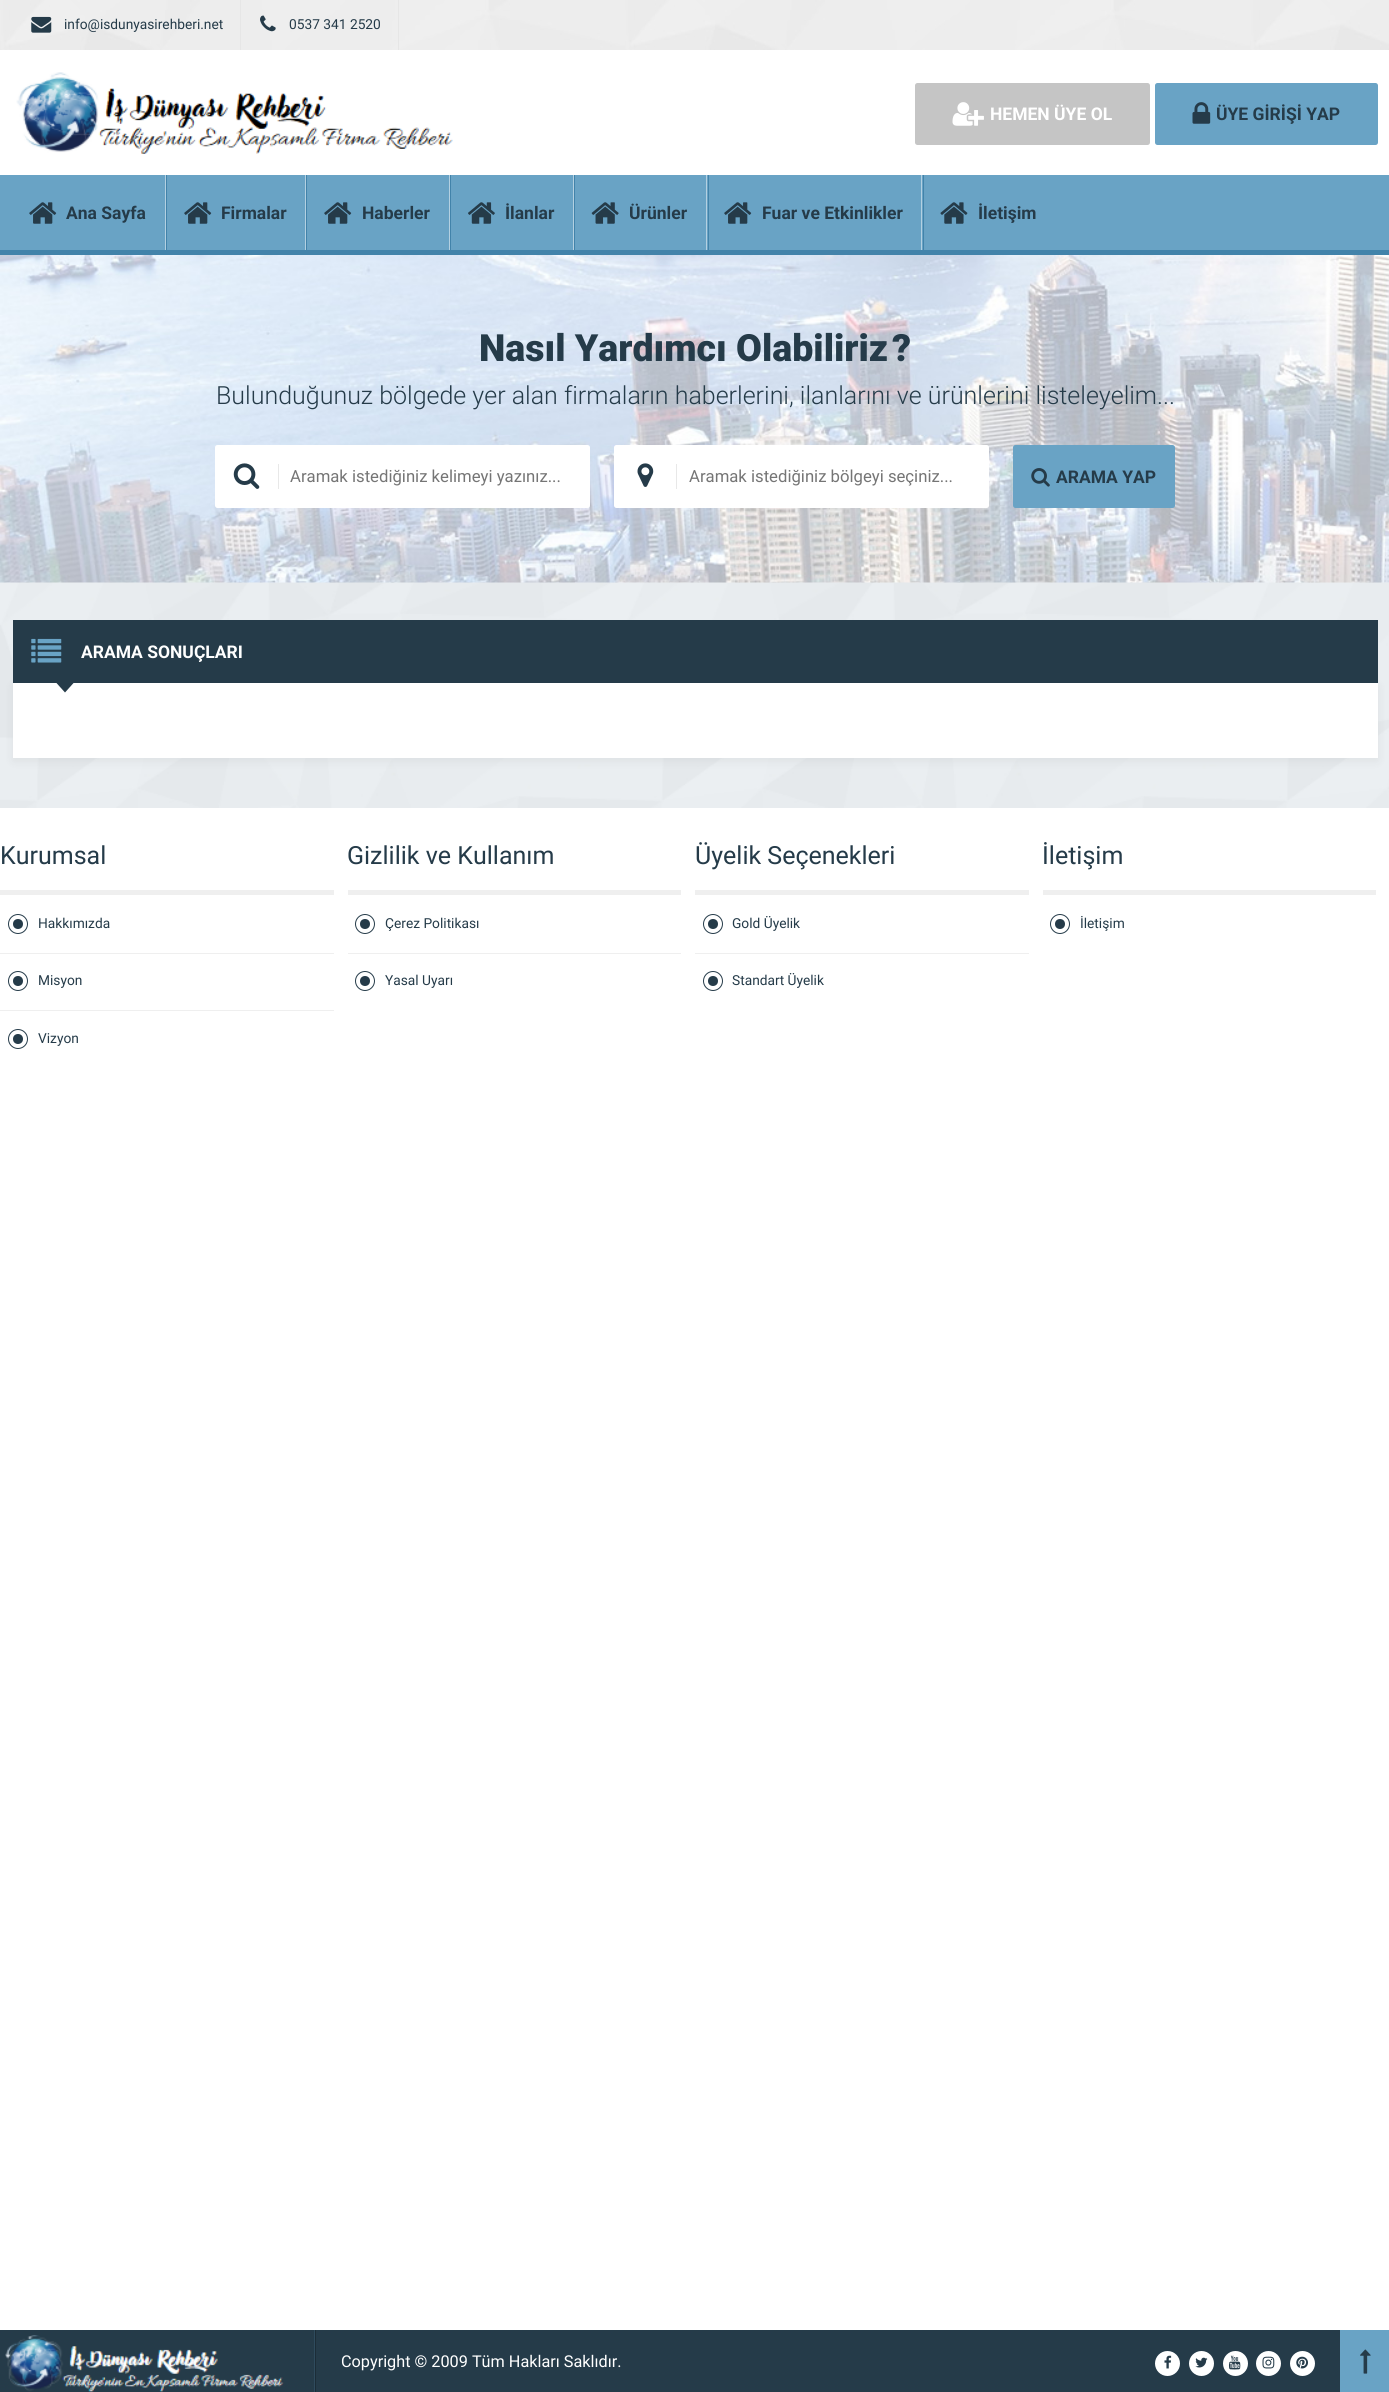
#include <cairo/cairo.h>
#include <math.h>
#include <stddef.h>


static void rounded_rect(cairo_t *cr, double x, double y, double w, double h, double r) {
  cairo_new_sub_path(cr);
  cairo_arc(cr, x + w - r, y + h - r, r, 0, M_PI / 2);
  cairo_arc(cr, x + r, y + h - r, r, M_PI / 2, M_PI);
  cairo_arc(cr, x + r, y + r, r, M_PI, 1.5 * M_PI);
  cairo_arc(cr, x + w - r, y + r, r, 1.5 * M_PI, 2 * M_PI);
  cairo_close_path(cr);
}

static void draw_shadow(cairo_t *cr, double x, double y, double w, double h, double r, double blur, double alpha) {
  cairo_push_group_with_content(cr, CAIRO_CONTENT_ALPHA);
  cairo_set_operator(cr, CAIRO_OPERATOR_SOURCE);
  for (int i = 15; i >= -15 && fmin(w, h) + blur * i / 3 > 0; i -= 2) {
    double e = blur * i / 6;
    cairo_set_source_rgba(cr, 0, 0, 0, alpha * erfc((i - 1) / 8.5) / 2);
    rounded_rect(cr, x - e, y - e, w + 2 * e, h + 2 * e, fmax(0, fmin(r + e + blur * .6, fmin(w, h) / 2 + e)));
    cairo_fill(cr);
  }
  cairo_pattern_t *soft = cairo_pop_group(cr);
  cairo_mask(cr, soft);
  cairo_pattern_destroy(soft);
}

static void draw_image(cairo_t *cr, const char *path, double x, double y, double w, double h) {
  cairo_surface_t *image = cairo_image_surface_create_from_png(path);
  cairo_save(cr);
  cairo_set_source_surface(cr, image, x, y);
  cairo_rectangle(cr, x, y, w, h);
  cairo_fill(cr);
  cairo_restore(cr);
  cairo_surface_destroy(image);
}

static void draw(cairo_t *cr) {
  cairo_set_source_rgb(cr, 1, 1, 1);
  cairo_paint(cr);
  draw_image(cr, "images/1.png", 0, 582, 1389, 226);
  draw_image(cr, "images/2.png", 0, 0, 1389, 50);
  cairo_set_source_rgb(cr, 230 / 255.0, 230 / 255.0, 230 / 255.0);
  cairo_rectangle(cr, 240, 0, 1, 50);
  cairo_fill(cr);
  draw_image(cr, "images/3.png", 31, 16, 21, 17);
  cairo_rectangle(cr, 398, 0, 1, 50);
  cairo_fill(cr);
  draw_image(cr, "images/4.png", 260, 15, 16, 17);
  draw_image(cr, "images/5.png", 16, 72, 437, 82);
  cairo_set_source_rgb(cr, 197 / 255.0, 197 / 255.0, 197 / 255.0);
  rounded_rect(cr, 915, 83, 235, 62, 2.5);
  cairo_fill(cr);
  draw_image(cr, "images/6.png", 952, 102, 32, 24);
  cairo_set_source_rgb(cr, 105 / 255.0, 163 / 255.0, 197 / 255.0);
  rounded_rect(cr, 1155, 83, 223, 62, 2.5);
  cairo_fill(cr);
  draw_image(cr, "images/7.png", 1192, 102, 19, 22);
  cairo_rectangle(cr, 0, 175, 1389, 75);
  cairo_fill(cr);
  cairo_set_source_rgb(cr, 66 / 255.0, 131 / 255.0, 170 / 255.0);
  cairo_rectangle(cr, 0, 250, 1389, 5);
  cairo_fill(cr);
  cairo_set_source_rgb(cr, 179 / 255.0, 208 / 255.0, 225 / 255.0);
  cairo_rectangle(cr, 165, 175, 1, 75);
  cairo_fill(cr);
  draw_image(cr, "images/8.png", 29, 202, 28, 22);
  cairo_rectangle(cr, 305, 175, 1, 75);
  cairo_fill(cr);
  cairo_set_source_rgb(cr, 66 / 255.0, 131 / 255.0, 170 / 255.0);
  cairo_rectangle(cr, 166, 175, 1, 75);
  cairo_fill(cr);
  draw_image(cr, "images/8.png", 184, 202, 28, 22);
  cairo_set_source_rgb(cr, 179 / 255.0, 208 / 255.0, 225 / 255.0);
  cairo_rectangle(cr, 449, 175, 1, 75);
  cairo_fill(cr);
  cairo_set_source_rgb(cr, 66 / 255.0, 131 / 255.0, 170 / 255.0);
  cairo_rectangle(cr, 306, 175, 1, 75);
  cairo_fill(cr);
  draw_image(cr, "images/8.png", 324, 202, 28, 22);
  cairo_set_source_rgb(cr, 179 / 255.0, 208 / 255.0, 225 / 255.0);
  cairo_rectangle(cr, 573, 175, 1, 75);
  cairo_fill(cr);
  cairo_set_source_rgb(cr, 66 / 255.0, 131 / 255.0, 170 / 255.0);
  cairo_rectangle(cr, 450, 175, 1, 75);
  cairo_fill(cr);
  draw_image(cr, "images/9.png", 468, 202, 27, 22);
  cairo_set_source_rgb(cr, 179 / 255.0, 208 / 255.0, 225 / 255.0);
  cairo_rectangle(cr, 706, 175, 1, 75);
  cairo_fill(cr);
  cairo_set_source_rgb(cr, 66 / 255.0, 131 / 255.0, 170 / 255.0);
  cairo_rectangle(cr, 574, 175, 1, 75);
  cairo_fill(cr);
  draw_image(cr, "images/10.png", 591, 202, 28, 22);
  cairo_set_source_rgb(cr, 179 / 255.0, 208 / 255.0, 225 / 255.0);
  cairo_rectangle(cr, 921, 175, 1, 75);
  cairo_fill(cr);
  cairo_set_source_rgb(cr, 66 / 255.0, 131 / 255.0, 170 / 255.0);
  cairo_rectangle(cr, 708, 175, 1, 75);
  cairo_fill(cr);
  draw_image(cr, "images/8.png", 724, 202, 28, 22);
  cairo_rectangle(cr, 923, 175, 1, 75);
  cairo_fill(cr);
  draw_image(cr, "images/11.png", 940, 202, 28, 22);
  draw_image(cr, "images/12.png", 0, 255, 1389, 328);
  cairo_set_source_rgb(cr, 1, 1, 1);
  rounded_rect(cr, 215, 445, 375, 63, 2.5);
  cairo_fill(cr);
  cairo_set_source_rgb(cr, 232 / 255.0, 232 / 255.0, 232 / 255.0);
  cairo_rectangle(cr, 278, 464, 1, 25);
  cairo_fill(cr);
  draw_image(cr, "images/13.png", 233, 463, 27, 26);
  cairo_set_source_rgb(cr, 1, 1, 1);
  rounded_rect(cr, 614, 445, 375, 63, 2.5);
  cairo_fill(cr);
  cairo_set_source_rgb(cr, 232 / 255.0, 232 / 255.0, 232 / 255.0);
  cairo_rectangle(cr, 676, 464, 1, 25);
  cairo_fill(cr);
  draw_image(cr, "images/14.png", 637, 463, 17, 24);
  cairo_set_source_rgb(cr, 105 / 255.0, 163 / 255.0, 197 / 255.0);
  rounded_rect(cr, 1013, 445, 162, 63, 2.5);
  cairo_fill(cr);
  draw_image(cr, "images/15.png", 1031, 468, 19, 19);
  cairo_set_source_rgb(cr, 0, 0, 0);
  draw_shadow(cr, 13, 686, 1365, 75, 0, 5, 0.06);
  cairo_set_source_rgb(cr, 37 / 255.0, 59 / 255.0, 73 / 255.0);
  cairo_rectangle(cr, 13, 620, 1365, 63);
  cairo_fill(cr);
  draw_image(cr, "images/16.png", 31, 638, 31, 25);
  cairo_set_source_rgb(cr, 1, 1, 1);
  cairo_rectangle(cr, 13, 683, 1365, 75);
  cairo_fill(cr);
  cairo_set_source_rgb(cr, 37 / 255.0, 59 / 255.0, 73 / 255.0);
  cairo_new_path(cr);
  cairo_move_to(cr, 56, 682.5);
  cairo_line_to(cr, 74, 682.5);
  cairo_line_to(cr, 65, 692.5);
  cairo_close_path(cr);
  cairo_fill(cr);
  cairo_set_source_rgb(cr, 239 / 255.0, 239 / 255.0, 239 / 255.0);
  cairo_rectangle(cr, 0, 890, 334, 5);
  cairo_fill(cr);
  cairo_set_source_rgb(cr, 37 / 255.0, 59 / 255.0, 73 / 255.0);
  cairo_arc(cr, 18, 924, 5, 0, 2 * M_PI);
  cairo_fill(cr);
  cairo_arc(cr, 18, 924, 9.5, 0, 2 * M_PI);
  cairo_set_line_width(cr, 1);
  cairo_stroke(cr);
  cairo_set_source_rgb(cr, 239 / 255.0, 239 / 255.0, 239 / 255.0);
  cairo_rectangle(cr, 0, 953, 334, 1);
  cairo_fill(cr);
  cairo_set_source_rgb(cr, 37 / 255.0, 59 / 255.0, 73 / 255.0);
  cairo_arc(cr, 18, 981, 5, 0, 2 * M_PI);
  cairo_fill(cr);
  cairo_arc(cr, 18, 981, 9.5, 0, 2 * M_PI);
  cairo_stroke(cr);
  cairo_set_source_rgb(cr, 239 / 255.0, 239 / 255.0, 239 / 255.0);
  cairo_rectangle(cr, 0, 1010, 334, 1);
  cairo_fill(cr);
  cairo_set_source_rgb(cr, 37 / 255.0, 59 / 255.0, 73 / 255.0);
  cairo_arc(cr, 18, 1039, 5, 0, 2 * M_PI);
  cairo_fill(cr);
  cairo_arc(cr, 18, 1039, 9.5, 0, 2 * M_PI);
  cairo_stroke(cr);
  cairo_set_source_rgb(cr, 239 / 255.0, 239 / 255.0, 239 / 255.0);
  cairo_rectangle(cr, 348, 890, 333, 5);
  cairo_fill(cr);
  cairo_set_source_rgb(cr, 37 / 255.0, 59 / 255.0, 73 / 255.0);
  cairo_arc(cr, 365, 924, 5, 0, 2 * M_PI);
  cairo_fill(cr);
  cairo_arc(cr, 365, 924, 9.5, 0, 2 * M_PI);
  cairo_stroke(cr);
  cairo_set_source_rgb(cr, 239 / 255.0, 239 / 255.0, 239 / 255.0);
  cairo_rectangle(cr, 348, 953, 333, 1);
  cairo_fill(cr);
  cairo_set_source_rgb(cr, 37 / 255.0, 59 / 255.0, 73 / 255.0);
  cairo_arc(cr, 365, 981, 5, 0, 2 * M_PI);
  cairo_fill(cr);
  cairo_arc(cr, 365, 981, 9.5, 0, 2 * M_PI);
  cairo_stroke(cr);
  cairo_set_source_rgb(cr, 239 / 255.0, 239 / 255.0, 239 / 255.0);
  cairo_rectangle(cr, 695, 890, 334, 5);
  cairo_fill(cr);
  cairo_set_source_rgb(cr, 37 / 255.0, 59 / 255.0, 73 / 255.0);
  cairo_arc(cr, 713, 924, 5, 0, 2 * M_PI);
  cairo_fill(cr);
  cairo_arc(cr, 713, 924, 9.5, 0, 2 * M_PI);
  cairo_stroke(cr);
  cairo_set_source_rgb(cr, 239 / 255.0, 239 / 255.0, 239 / 255.0);
  cairo_rectangle(cr, 695, 953, 334, 1);
  cairo_fill(cr);
  cairo_set_source_rgb(cr, 37 / 255.0, 59 / 255.0, 73 / 255.0);
  cairo_arc(cr, 713, 981, 5, 0, 2 * M_PI);
  cairo_fill(cr);
  cairo_arc(cr, 713, 981, 9.5, 0, 2 * M_PI);
  cairo_stroke(cr);
  cairo_set_source_rgb(cr, 239 / 255.0, 239 / 255.0, 239 / 255.0);
  cairo_rectangle(cr, 1043, 890, 333, 5);
  cairo_fill(cr);
  cairo_set_source_rgb(cr, 37 / 255.0, 59 / 255.0, 73 / 255.0);
  cairo_arc(cr, 1060, 924, 5, 0, 2 * M_PI);
  cairo_fill(cr);
  cairo_arc(cr, 1060, 924, 9.5, 0, 2 * M_PI);
  cairo_stroke(cr);
  cairo_rectangle(cr, 0, 2330, 1340, 62);
  cairo_fill(cr);
  cairo_set_source_rgb(cr, 47 / 255.0, 75 / 255.0, 93 / 255.0);
  cairo_rectangle(cr, 314, 2330, 1, 62);
  cairo_fill(cr);
  draw_image(cr, "images/17.png", 5, 2335, 279, 57);
  cairo_set_source_rgb(cr, 28 / 255.0, 45 / 255.0, 56 / 255.0);
  cairo_rectangle(cr, 315, 2330, 1, 62);
  cairo_fill(cr);
  cairo_set_source_rgb(cr, 1, 1, 1);
  cairo_arc(cr, 1167.5, 2363.5, 12.5, 0, 2 * M_PI);
  cairo_fill(cr);
  draw_image(cr, "images/18.png", 1164, 2355, 8, 14);
  cairo_arc(cr, 1201.5, 2363.5, 12.5, 0, 2 * M_PI);
  cairo_fill(cr);
  draw_image(cr, "images/19.png", 1195, 2357, 13, 11);
  cairo_arc(cr, 1235.5, 2363.5, 12.5, 0, 2 * M_PI);
  cairo_fill(cr);
  draw_image(cr, "images/20.png", 1228, 2355, 13, 15);
  cairo_arc(cr, 1268.5, 2363.5, 12.5, 0, 2 * M_PI);
  cairo_fill(cr);
  draw_image(cr, "images/21.png", 1262, 2356, 13, 13);
  cairo_arc(cr, 1302.5, 2363.5, 12.5, 0, 2 * M_PI);
  cairo_fill(cr);
  draw_image(cr, "images/22.png", 1296, 2356, 12, 13);
  cairo_set_source_rgb(cr, 105 / 255.0, 163 / 255.0, 197 / 255.0);
  cairo_rectangle(cr, 1340, 2330, 49, 62);
  cairo_fill(cr);
  draw_image(cr, "images/23.png", 1360, 2349, 11, 25);
  cairo_select_font_face(cr, "Roboto", CAIRO_FONT_SLANT_NORMAL, CAIRO_FONT_WEIGHT_NORMAL);
  cairo_set_font_size(cr, 13.75);
  cairo_set_source_rgb(cr, 37 / 255.0, 59 / 255.0, 73 / 255.0);
  cairo_move_to(cr, 64, 29);
  cairo_show_text(cr, "info@isdunyasirehberi.net");
  cairo_move_to(cr, 289, 29);
  cairo_show_text(cr, "0537 341 2520");
  cairo_select_font_face(cr, "Roboto", CAIRO_FONT_SLANT_NORMAL, CAIRO_FONT_WEIGHT_BOLD);
  cairo_set_font_size(cr, 17.5);
  cairo_set_source_rgb(cr, 1, 1, 1);
  cairo_move_to(cr, 990, 120);
  cairo_show_text(cr, "HEMEN ÜYE OL");
  cairo_set_source_rgb(cr, 37 / 255.0, 59 / 255.0, 73 / 255.0);
  cairo_move_to(cr, 1216, 120);
  cairo_show_text(cr, "ÜYE GİRİŞİ YAP");
  cairo_move_to(cr, 66, 219);
  cairo_show_text(cr, "Ana Sayfa");
  cairo_move_to(cr, 221, 219);
  cairo_show_text(cr, "Firmalar");
  cairo_move_to(cr, 362, 219);
  cairo_show_text(cr, "Haberler");
  cairo_move_to(cr, 505, 219);
  cairo_show_text(cr, "İlanlar");
  cairo_move_to(cr, 629, 219);
  cairo_show_text(cr, "Ürünler");
  cairo_move_to(cr, 762, 219);
  cairo_show_text(cr, "Fuar ve Etkinlikler");
  cairo_move_to(cr, 978, 219);
  cairo_show_text(cr, "İletişim");
  cairo_select_font_face(cr, "Roboto Black", CAIRO_FONT_SLANT_NORMAL, CAIRO_FONT_WEIGHT_NORMAL);
  cairo_set_font_size(cr, 37.5);
  cairo_move_to(cr, 479, 361);
  cairo_show_text(cr, "Nasıl Yardımcı Olabiliriz");
  cairo_move_to(cr, 892, 361);
  cairo_show_text(cr, "?");
  cairo_select_font_face(cr, "Roboto Light", CAIRO_FONT_SLANT_NORMAL, CAIRO_FONT_WEIGHT_NORMAL);
  cairo_set_font_size(cr, 25);
  cairo_move_to(cr, 216, 404);
  cairo_show_text(cr, "Bulunduğunuz bölgede yer alan firmaların haberlerini, ilanlarını ve ürünlerini listeleyelim...");
  cairo_select_font_face(cr, "Roboto", CAIRO_FONT_SLANT_NORMAL, CAIRO_FONT_WEIGHT_NORMAL);
  cairo_set_font_size(cr, 16.7);
  cairo_set_source_rgb(cr, 117 / 255.0, 117 / 255.0, 117 / 255.0);
  cairo_move_to(cr, 290, 482);
  cairo_show_text(cr, "Aramak istediğiniz kelimeyi yazınız...");
  cairo_move_to(cr, 689, 482);
  cairo_show_text(cr, "Aramak istediğiniz bölgeyi seçiniz...");
  cairo_select_font_face(cr, "Roboto", CAIRO_FONT_SLANT_NORMAL, CAIRO_FONT_WEIGHT_BOLD);
  cairo_set_font_size(cr, 17.5);
  cairo_set_source_rgb(cr, 37 / 255.0, 59 / 255.0, 73 / 255.0);
  cairo_move_to(cr, 1056, 483);
  cairo_show_text(cr, "ARAMA YAP");
  cairo_set_source_rgb(cr, 1, 1, 1);
  cairo_move_to(cr, 81, 658);
  cairo_show_text(cr, "ARAMA SONUÇLARI");
  cairo_select_font_face(cr, "Roboto", CAIRO_FONT_SLANT_NORMAL, CAIRO_FONT_WEIGHT_NORMAL);
  cairo_set_font_size(cr, 25);
  cairo_set_source_rgb(cr, 37 / 255.0, 59 / 255.0, 73 / 255.0);
  cairo_move_to(cr, 0, 864);
  cairo_show_text(cr, "Kurumsal");
  cairo_set_font_size(cr, 13.75);
  cairo_move_to(cr, 38, 928);
  cairo_show_text(cr, "Hakkımızda");
  cairo_move_to(cr, 38, 985);
  cairo_show_text(cr, "Misyon");
  cairo_move_to(cr, 38, 1043);
  cairo_show_text(cr, "Vizyon");
  cairo_set_font_size(cr, 25);
  cairo_move_to(cr, 347, 864);
  cairo_show_text(cr, "Gizlilik ve Kullanım");
  cairo_set_font_size(cr, 13.75);
  cairo_move_to(cr, 385, 928);
  cairo_show_text(cr, "Çerez Politikası");
  cairo_move_to(cr, 385, 985);
  cairo_show_text(cr, "Yasal Uyarı");
  cairo_set_font_size(cr, 25);
  cairo_move_to(cr, 695, 864);
  cairo_show_text(cr, "Üyelik Seçenekleri");
  cairo_set_font_size(cr, 13.75);
  cairo_move_to(cr, 732, 928);
  cairo_show_text(cr, "Gold Üyelik");
  cairo_move_to(cr, 732, 985);
  cairo_show_text(cr, "Standart Üyelik");
  cairo_set_font_size(cr, 25);
  cairo_move_to(cr, 1042, 864);
  cairo_show_text(cr, "İletişim");
  cairo_set_font_size(cr, 13.75);
  cairo_move_to(cr, 1080, 928);
  cairo_show_text(cr, "İletişim");
  cairo_set_font_size(cr, 16.25);
  cairo_set_source_rgb(cr, 1, 1, 1);
  cairo_move_to(cr, 341, 2367);
  cairo_show_text(cr, "Copyright © 2009 Tüm Hakları Saklıdır.");
}

int main(void) {
  cairo_surface_t *surface = cairo_image_surface_create(CAIRO_FORMAT_RGB24, 1389, 2392);
  cairo_t *cr = cairo_create(surface);
  cairo_font_options_t *options = cairo_font_options_create();
  cairo_font_options_set_hint_metrics(options, CAIRO_HINT_METRICS_OFF);
  cairo_font_options_set_hint_style(options, CAIRO_HINT_STYLE_NONE);
  cairo_set_font_options(cr, options);
  cairo_set_miter_limit(cr, 4);
  draw(cr);
  cairo_surface_write_to_png(surface, "out.png");
  cairo_font_options_destroy(options);
  cairo_destroy(cr);
  cairo_surface_destroy(surface);
  return 0;
}
